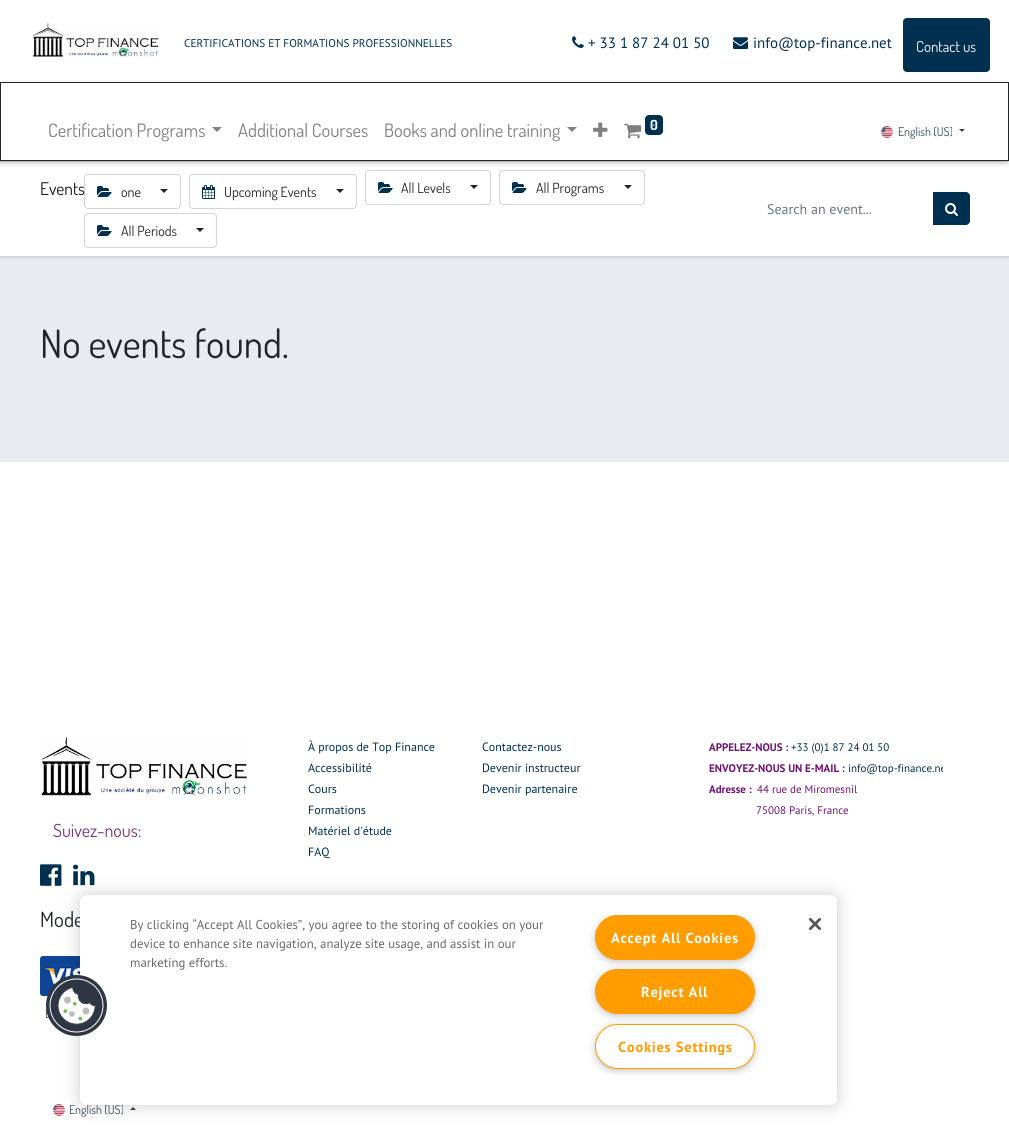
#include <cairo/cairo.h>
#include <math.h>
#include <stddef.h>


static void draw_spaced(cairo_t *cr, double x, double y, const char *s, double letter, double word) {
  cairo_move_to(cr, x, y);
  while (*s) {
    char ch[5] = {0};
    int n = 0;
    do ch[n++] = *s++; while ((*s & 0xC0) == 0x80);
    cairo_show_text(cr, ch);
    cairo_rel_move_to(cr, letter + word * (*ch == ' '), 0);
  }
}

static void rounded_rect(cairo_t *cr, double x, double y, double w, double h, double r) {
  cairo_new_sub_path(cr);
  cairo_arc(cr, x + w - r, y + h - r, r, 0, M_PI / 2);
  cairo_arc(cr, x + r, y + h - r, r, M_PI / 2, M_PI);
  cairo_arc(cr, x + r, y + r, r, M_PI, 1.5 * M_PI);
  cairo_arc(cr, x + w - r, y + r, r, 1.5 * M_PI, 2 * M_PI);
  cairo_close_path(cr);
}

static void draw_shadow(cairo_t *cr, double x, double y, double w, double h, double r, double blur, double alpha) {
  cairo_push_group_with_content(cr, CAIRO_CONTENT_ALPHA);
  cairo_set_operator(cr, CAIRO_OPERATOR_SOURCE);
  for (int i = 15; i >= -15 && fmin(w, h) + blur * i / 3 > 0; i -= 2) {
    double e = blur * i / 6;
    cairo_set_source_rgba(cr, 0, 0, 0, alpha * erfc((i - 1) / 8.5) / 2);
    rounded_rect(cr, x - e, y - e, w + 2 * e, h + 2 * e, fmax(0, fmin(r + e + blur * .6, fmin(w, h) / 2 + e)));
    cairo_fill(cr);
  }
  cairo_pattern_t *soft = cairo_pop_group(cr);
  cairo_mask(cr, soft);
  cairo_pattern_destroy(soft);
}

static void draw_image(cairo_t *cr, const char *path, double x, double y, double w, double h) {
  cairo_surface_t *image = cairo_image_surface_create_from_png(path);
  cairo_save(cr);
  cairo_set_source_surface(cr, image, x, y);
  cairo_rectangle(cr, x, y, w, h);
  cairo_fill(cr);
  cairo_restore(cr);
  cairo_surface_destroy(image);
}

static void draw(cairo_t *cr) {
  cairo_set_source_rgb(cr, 1, 1, 1);
  cairo_paint(cr);
  draw_image(cr, "images/1.png", 32, 22, 127, 35);
  draw_image(cr, "images/2.png", 572, 36, 12, 12);
  draw_image(cr, "images/3.png", 733, 37, 15, 13);
  cairo_set_source_rgb(cr, 0, 48 / 255.0, 80 / 255.0);
  rounded_rect(cr, 903.5, 18.5, 86, 53, 3.5);
  cairo_fill_preserve(cr);
  cairo_set_line_width(cr, 1);
  cairo_stroke(cr);
  cairo_set_source_rgb(cr, 233 / 255.0, 236 / 255.0, 239 / 255.0);
  cairo_rectangle(cr, 0, 256, 1009, 206);
  cairo_fill(cr);
  cairo_save(cr);
  cairo_rectangle(cr, 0, 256, 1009, 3);
  cairo_clip(cr);
  cairo_set_source_rgb(cr, 0, 0, 0);
  draw_shadow(cr, 0, 161, 1009, 95, 0, 2.5, 0.25);
  cairo_restore(cr);
  cairo_set_source_rgb(cr, 222 / 255.0, 226 / 255.0, 230 / 255.0);
  cairo_rectangle(cr, 0, 161, 1009, 1);
  cairo_fill(cr);
  rounded_rect(cr, 365.5, 170.5, 125, 34, 3.5);
  cairo_set_source_rgb(cr, 206 / 255.0, 212 / 255.0, 218 / 255.0);
  cairo_stroke(cr);
  rounded_rect(cr, 499.5, 170.5, 145, 34, 3.5);
  cairo_stroke(cr);
  cairo_set_source_rgb(cr, 0, 0, 0);
  draw_shadow(cr, -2, 84, 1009, 79, 0, 2.5, 0.25);
  cairo_set_source_rgb(cr, 1, 1, 1);
  cairo_rectangle(cr, 0.5, 82.5, 1008, 78);
  cairo_fill_preserve(cr);
  cairo_set_source_rgb(cr, 33 / 255.0, 37 / 255.0, 41 / 255.0);
  cairo_stroke(cr);
  cairo_set_source_rgb(cr, 128 / 255.0, 128 / 255.0, 128 / 255.0);
  cairo_new_path(cr);
  cairo_move_to(cr, 212, 127);
  cairo_line_to(cr, 222, 127);
  cairo_line_to(cr, 217, 132);
  cairo_close_path(cr);
  cairo_fill(cr);
  cairo_new_path(cr);
  cairo_move_to(cr, 567, 127);
  cairo_line_to(cr, 577, 127);
  cairo_line_to(cr, 572, 132);
  cairo_close_path(cr);
  cairo_fill(cr);
  draw_image(cr, "images/4.png", 593, 122, 15, 15);
  draw_image(cr, "images/5.png", 624, 123, 18, 16);
  cairo_set_source_rgb(cr, 0, 48 / 255.0, 80 / 255.0);
  rounded_rect(cr, 645, 115, 18, 20, 4);
  cairo_fill(cr);
  draw_image(cr, "images/6.png", 881, 126, 12, 12);
  cairo_set_source_rgb(cr, 52 / 255.0, 73 / 255.0, 94 / 255.0);
  cairo_new_path(cr);
  cairo_move_to(cr, 959, 129);
  cairo_line_to(cr, 965, 129);
  cairo_line_to(cr, 962, 132);
  cairo_close_path(cr);
  cairo_fill(cr);
  rounded_rect(cr, 84.5, 174.5, 96, 34, 3.5);
  cairo_set_source_rgb(cr, 206 / 255.0, 212 / 255.0, 218 / 255.0);
  cairo_stroke(cr);
  draw_image(cr, "images/7.png", 97, 186, 15, 11);
  cairo_set_source_rgb(cr, 33 / 255.0, 37 / 255.0, 41 / 255.0);
  cairo_new_path(cr);
  cairo_move_to(cr, 160, 189);
  cairo_line_to(cr, 168, 189);
  cairo_line_to(cr, 164, 193);
  cairo_close_path(cr);
  cairo_fill(cr);
  rounded_rect(cr, 189.5, 174.5, 167, 34, 3.5);
  cairo_set_source_rgb(cr, 206 / 255.0, 212 / 255.0, 218 / 255.0);
  cairo_stroke(cr);
  draw_image(cr, "images/8.png", 202, 185, 13, 14);
  cairo_set_source_rgb(cr, 33 / 255.0, 37 / 255.0, 41 / 255.0);
  cairo_new_path(cr);
  cairo_move_to(cr, 336, 189);
  cairo_line_to(cr, 344, 189);
  cairo_line_to(cr, 340, 193);
  cairo_close_path(cr);
  cairo_fill(cr);
  draw_image(cr, "images/7.png", 378, 182, 15, 11);
  cairo_new_path(cr);
  cairo_move_to(cr, 470, 185);
  cairo_line_to(cr, 478, 185);
  cairo_line_to(cr, 474, 189);
  cairo_close_path(cr);
  cairo_fill(cr);
  draw_image(cr, "images/7.png", 512, 182, 15, 11);
  cairo_new_path(cr);
  cairo_move_to(cr, 624, 185);
  cairo_line_to(cr, 632, 185);
  cairo_line_to(cr, 628, 189);
  cairo_close_path(cr);
  cairo_fill(cr);
  rounded_rect(cr, 84.5, 213.5, 132, 34, 3.5);
  cairo_set_source_rgb(cr, 206 / 255.0, 212 / 255.0, 218 / 255.0);
  cairo_stroke(cr);
  draw_image(cr, "images/7.png", 97, 225, 15, 11);
  cairo_set_source_rgb(cr, 33 / 255.0, 37 / 255.0, 41 / 255.0);
  cairo_new_path(cr);
  cairo_move_to(cr, 196, 228);
  cairo_line_to(cr, 204, 228);
  cairo_line_to(cr, 200, 232);
  cairo_close_path(cr);
  cairo_fill(cr);
  cairo_set_source_rgb(cr, 0, 48 / 255.0, 80 / 255.0);
  cairo_new_path(cr);
  cairo_move_to(cr, 933, 192);
  cairo_line_to(cr, 966, 192);
  cairo_curve_to(cr, 968, 192, 970, 194, 970, 196);
  cairo_line_to(cr, 970, 221);
  cairo_curve_to(cr, 970, 223, 968, 225, 966, 225);
  cairo_line_to(cr, 933, 225);
  cairo_close_path(cr);
  cairo_fill(cr);
  draw_image(cr, "images/9.png", 945, 203, 13, 13);
  draw_image(cr, "images/10.png", 40, 737, 207, 59);
  draw_image(cr, "images/11.png", 40, 864, 22, 22);
  draw_image(cr, "images/12.png", 73, 864, 22, 22);
  draw_image(cr, "images/13.png", 40, 956, 40, 40);
  draw_image(cr, "images/14.png", 53, 1104, 12, 12);
  cairo_set_source_rgb(cr, 52 / 255.0, 73 / 255.0, 94 / 255.0);
  cairo_new_path(cr);
  cairo_move_to(cr, 136, 1110);
  cairo_line_to(cr, 130, 1110);
  cairo_line_to(cr, 133, 1107);
  cairo_close_path(cr);
  cairo_fill(cr);
  cairo_set_source_rgb(cr, 0, 0, 0);
  draw_shadow(cr, 80, 895, 757, 210, 7, 9, 0.2);
  cairo_select_font_face(cr, "PT Sans", CAIRO_FONT_SLANT_NORMAL, CAIRO_FONT_WEIGHT_NORMAL);
  cairo_set_font_size(cr, 11.2);
  cairo_set_source_rgb(cr, 0, 48 / 255.0, 80 / 255.0);
  cairo_move_to(cr, 184, 47);
  cairo_show_text(cr, "CERTIFICATIONS ET FORMATIONS PROFESSIONNELLES");
  cairo_set_font_size(cr, 15);
  cairo_move_to(cr, 588, 48);
  cairo_show_text(cr, "+ 33 1 87 24 01 50");
  cairo_move_to(cr, 753, 48);
  cairo_show_text(cr, "info@top-finance.net");
  cairo_select_font_face(cr, "Dosis", CAIRO_FONT_SLANT_NORMAL, CAIRO_FONT_WEIGHT_NORMAL);
  cairo_set_source_rgb(cr, 1, 1, 1);
  cairo_move_to(cr, 916, 52);
  cairo_show_text(cr, "Contact us");
  cairo_set_font_size(cr, 18.5);
  cairo_set_source_rgb(cr, 128 / 255.0, 128 / 255.0, 128 / 255.0);
  cairo_move_to(cr, 48, 137);
  cairo_show_text(cr, "Certification Programs");
  cairo_move_to(cr, 238, 137);
  cairo_show_text(cr, "Additional Courses");
  cairo_move_to(cr, 384, 137);
  cairo_show_text(cr, "Books and online training");
  cairo_select_font_face(cr, "Dosis", CAIRO_FONT_SLANT_NORMAL, CAIRO_FONT_WEIGHT_BOLD);
  cairo_set_font_size(cr, 14);
  cairo_set_source_rgb(cr, 1, 1, 1);
  cairo_move_to(cr, 650, 130);
  cairo_show_text(cr, "0");
  cairo_select_font_face(cr, "Dosis", CAIRO_FONT_SLANT_NORMAL, CAIRO_FONT_WEIGHT_NORMAL);
  cairo_set_font_size(cr, 12);
  cairo_set_source_rgb(cr, 52 / 255.0, 73 / 255.0, 94 / 255.0);
  cairo_move_to(cr, 898, 136);
  cairo_show_text(cr, "English (US)");
  cairo_set_font_size(cr, 17.5);
  cairo_set_source_rgb(cr, 26 / 255.0, 26 / 255.0, 26 / 255.0);
  cairo_move_to(cr, 40, 195);
  cairo_show_text(cr, "Events");
  cairo_set_font_size(cr, 14);
  cairo_set_source_rgb(cr, 33 / 255.0, 37 / 255.0, 41 / 255.0);
  cairo_move_to(cr, 121, 197);
  cairo_show_text(cr, "one");
  cairo_move_to(cr, 224, 197);
  cairo_show_text(cr, "Upcoming Events");
  cairo_move_to(cr, 401, 193);
  cairo_show_text(cr, "All Levels");
  cairo_move_to(cr, 536, 193);
  cairo_show_text(cr, "All Programs");
  cairo_move_to(cr, 121, 236);
  cairo_show_text(cr, "All Periods");
  cairo_select_font_face(cr, "PT Sans", CAIRO_FONT_SLANT_NORMAL, CAIRO_FONT_WEIGHT_NORMAL);
  cairo_set_source_rgb(cr, 108 / 255.0, 117 / 255.0, 125 / 255.0);
  cairo_move_to(cr, 767, 214);
  cairo_show_text(cr, "Search an event...");
  cairo_select_font_face(cr, "Dosis", CAIRO_FONT_SLANT_NORMAL, CAIRO_FONT_WEIGHT_NORMAL);
  cairo_set_font_size(cr, 39);
  cairo_set_source_rgb(cr, 33 / 255.0, 37 / 255.0, 41 / 255.0);
  cairo_move_to(cr, 40, 358);
  cairo_show_text(cr, "No events found.");
  cairo_set_font_size(cr, 18);
  cairo_set_source_rgb(cr, 118 / 255.0, 56 / 255.0, 119 / 255.0);
  cairo_move_to(cr, 53, 837);
  cairo_show_text(cr, "Suivez-nous:");
  cairo_select_font_face(cr, "PT Sans", CAIRO_FONT_SLANT_NORMAL, CAIRO_FONT_WEIGHT_NORMAL);
  cairo_set_font_size(cr, 12);
  cairo_set_source_rgb(cr, 0, 48 / 255.0, 80 / 255.0);
  cairo_move_to(cr, 308, 751);
  cairo_show_text(cr, "À propos de Top Finance");
  cairo_move_to(cr, 308, 772);
  cairo_show_text(cr, "Accessibilité");
  cairo_move_to(cr, 308, 793);
  cairo_show_text(cr, "Cours");
  cairo_move_to(cr, 308, 814);
  cairo_show_text(cr, "Formations");
  cairo_move_to(cr, 308, 835);
  cairo_show_text(cr, "Matériel d'étude");
  cairo_move_to(cr, 308, 856);
  cairo_show_text(cr, "FAQ");
  cairo_move_to(cr, 482, 751);
  cairo_show_text(cr, "Contactez-nous");
  cairo_move_to(cr, 482, 772);
  cairo_show_text(cr, "Devenir instructeur");
  cairo_move_to(cr, 482, 793);
  cairo_show_text(cr, "Devenir partenaire");
  cairo_select_font_face(cr, "PT Sans", CAIRO_FONT_SLANT_NORMAL, CAIRO_FONT_WEIGHT_BOLD);
  cairo_set_font_size(cr, 11);
  cairo_set_source_rgb(cr, 111 / 255.0, 19 / 255.0, 112 / 255.0);
  cairo_move_to(cr, 709, 751);
  cairo_show_text(cr, "APPELEZ-NOUS :");
  cairo_select_font_face(cr, "PT Sans", CAIRO_FONT_SLANT_NORMAL, CAIRO_FONT_WEIGHT_NORMAL);
  cairo_set_source_rgb(cr, 0, 48 / 255.0, 80 / 255.0);
  cairo_move_to(cr, 791, 751);
  cairo_show_text(cr, "+33 (0)1 87 24 01 50");
  cairo_select_font_face(cr, "PT Sans", CAIRO_FONT_SLANT_NORMAL, CAIRO_FONT_WEIGHT_BOLD);
  cairo_set_source_rgb(cr, 111 / 255.0, 19 / 255.0, 112 / 255.0);
  cairo_move_to(cr, 709, 772);
  cairo_show_text(cr, "ENVOYEZ-NOUS UN E-MAIL :");
  cairo_save(cr);
  cairo_rectangle(cr, 250, 736, 693, 171);
  cairo_clip(cr);
  cairo_select_font_face(cr, "PT Sans", CAIRO_FONT_SLANT_NORMAL, CAIRO_FONT_WEIGHT_NORMAL);
  cairo_set_source_rgb(cr, 0, 48 / 255.0, 80 / 255.0);
  cairo_move_to(cr, 848, 772);
  cairo_show_text(cr, "info@top-finance.ne");
  cairo_restore(cr);
  cairo_move_to(cr, 709, 793);
  cairo_show_text(cr, "Adresse :");
  cairo_select_font_face(cr, "PT Sans", CAIRO_FONT_SLANT_NORMAL, CAIRO_FONT_WEIGHT_NORMAL);
  cairo_move_to(cr, 757, 793);
  cairo_show_text(cr, "44 rue de Miromesnil");
  cairo_move_to(cr, 756, 814);
  cairo_show_text(cr, "75008 Paris, France");
  cairo_select_font_face(cr, "Dosis", CAIRO_FONT_SLANT_NORMAL, CAIRO_FONT_WEIGHT_NORMAL);
  cairo_set_font_size(cr, 21);
  cairo_set_source_rgb(cr, 33 / 255.0, 37 / 255.0, 41 / 255.0);
  cairo_move_to(cr, 40, 927);
  cairo_show_text(cr, "Mode");
  cairo_set_font_size(cr, 12);
  cairo_set_source_rgb(cr, 52 / 255.0, 73 / 255.0, 94 / 255.0);
  cairo_move_to(cr, 45, 1018);
  cairo_show_text(cr, "E");
  cairo_move_to(cr, 69, 1114);
  cairo_show_text(cr, "English (US)");
  cairo_set_source_rgb(cr, 1, 1, 1);
  rounded_rect(cr, 80, 895, 757, 210, 7);
  cairo_fill(cr);
  draw_image(cr, "images/15.png", 46, 975, 61, 61);
  cairo_select_font_face(cr, "PT Sans", CAIRO_FONT_SLANT_NORMAL, CAIRO_FONT_WEIGHT_NORMAL);
  cairo_set_font_size(cr, 12.8);
  cairo_set_source_rgb(cr, 105 / 255.0, 105 / 255.0, 105 / 255.0);
  cairo_move_to(cr, 130, 929);
  cairo_show_text(cr, "By clicking “Accept All Cookies”, you agree to the storing of cookies on your");
  cairo_move_to(cr, 130, 948);
  cairo_show_text(cr, "device to enhance site navigation, analyze site usage, and assist in our");
  cairo_move_to(cr, 130, 967);
  cairo_show_text(cr, "marketing efforts.");
  cairo_save(cr);
  cairo_rectangle(cr, 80, 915, 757, 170);
  cairo_clip(cr);
  cairo_set_source_rgb(cr, 153 / 255.0, 153 / 255.0, 153 / 255.0);
  draw_shadow(cr, 598, 920, 154, 39, 19.5, 5, 1);
  cairo_restore(cr);
  cairo_set_source_rgb(cr, 1, 156 / 255.0, 0);
  rounded_rect(cr, 595.5, 915.5, 159, 44, 22);
  cairo_fill_preserve(cr);
  cairo_stroke(cr);
  cairo_select_font_face(cr, "PT Sans", CAIRO_FONT_SLANT_NORMAL, CAIRO_FONT_WEIGHT_BOLD);
  cairo_set_font_size(cr, 14.5);
  cairo_set_source_rgb(cr, 1, 1, 1);
  draw_spaced(cr, 611, 943, "Accept All Cookies", 0.75, 0);
  cairo_set_source_rgb(cr, 153 / 255.0, 153 / 255.0, 153 / 255.0);
  draw_shadow(cr, 598, 974, 154, 39, 19.5, 5, 1);
  cairo_set_source_rgb(cr, 1, 156 / 255.0, 0);
  rounded_rect(cr, 595.5, 969.5, 159, 44, 22);
  cairo_fill_preserve(cr);
  cairo_stroke(cr);
  cairo_set_source_rgb(cr, 1, 1, 1);
  draw_spaced(cr, 641, 997, "Reject All", 0.75, 0);
  cairo_set_source_rgb(cr, 153 / 255.0, 153 / 255.0, 153 / 255.0);
  draw_shadow(cr, 598, 1029, 154, 39, 19.5, 5, 1);
  cairo_set_source_rgb(cr, 1, 1, 1);
  rounded_rect(cr, 595.5, 1024.5, 159, 44, 22);
  cairo_fill_preserve(cr);
  cairo_set_source_rgb(cr, 1, 156 / 255.0, 0);
  cairo_stroke(cr);
  draw_spaced(cr, 618, 1052, "Cookies Settings", 0.75, 0);
  draw_image(cr, "images/16.png", 809, 918, 12, 12);
}

int main(void) {
  cairo_surface_t *surface = cairo_image_surface_create(CAIRO_FORMAT_RGB24, 1009, 1137);
  cairo_t *cr = cairo_create(surface);
  cairo_font_options_t *options = cairo_font_options_create();
  cairo_font_options_set_hint_metrics(options, CAIRO_HINT_METRICS_OFF);
  cairo_font_options_set_hint_style(options, CAIRO_HINT_STYLE_NONE);
  cairo_set_font_options(cr, options);
  cairo_set_miter_limit(cr, 4);
  draw(cr);
  cairo_surface_write_to_png(surface, "out.png");
  cairo_font_options_destroy(options);
  cairo_destroy(cr);
  cairo_surface_destroy(surface);
  return 0;
}
